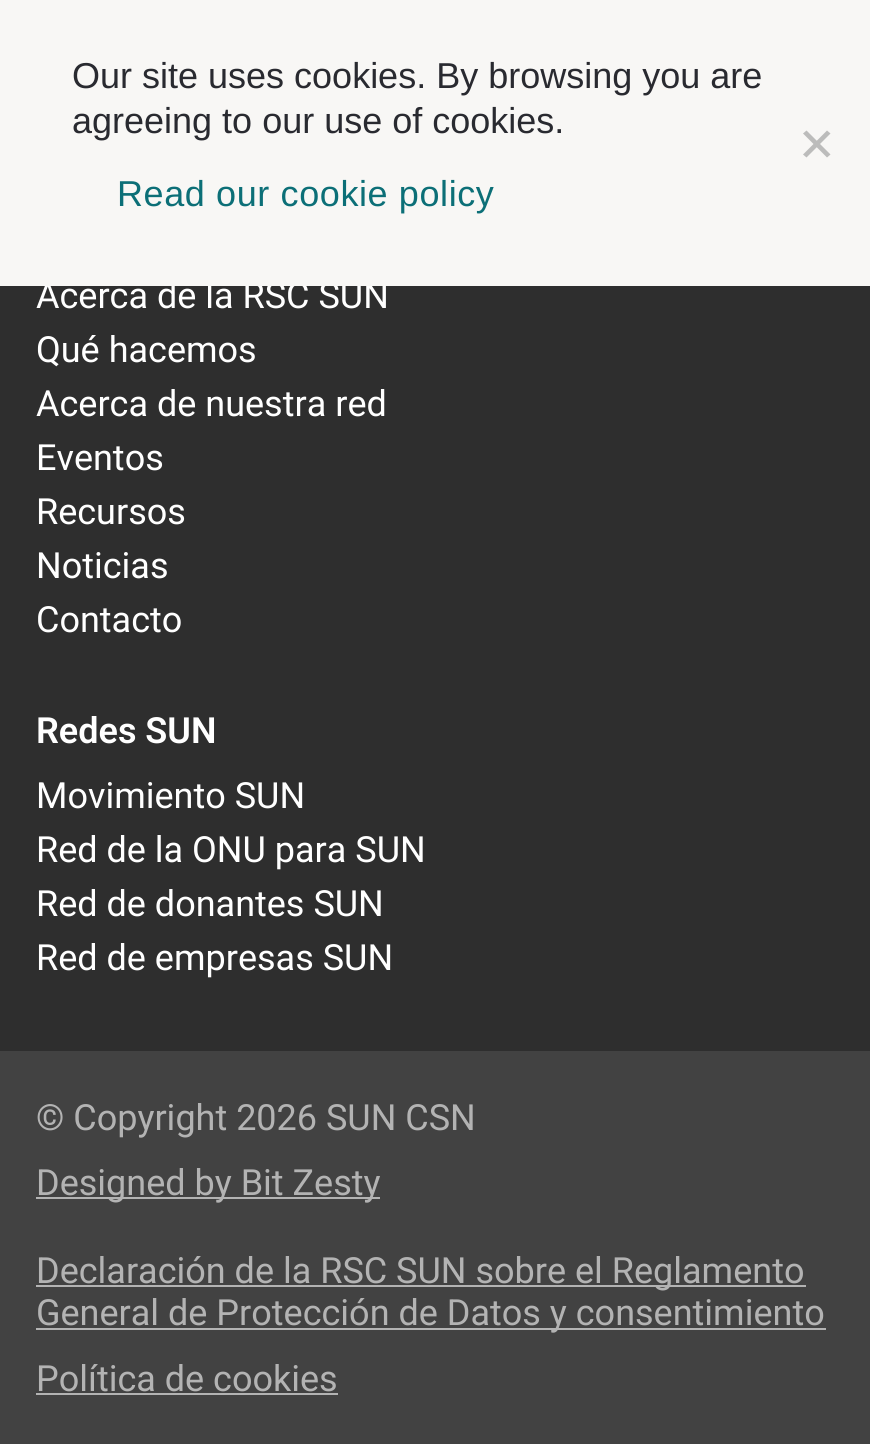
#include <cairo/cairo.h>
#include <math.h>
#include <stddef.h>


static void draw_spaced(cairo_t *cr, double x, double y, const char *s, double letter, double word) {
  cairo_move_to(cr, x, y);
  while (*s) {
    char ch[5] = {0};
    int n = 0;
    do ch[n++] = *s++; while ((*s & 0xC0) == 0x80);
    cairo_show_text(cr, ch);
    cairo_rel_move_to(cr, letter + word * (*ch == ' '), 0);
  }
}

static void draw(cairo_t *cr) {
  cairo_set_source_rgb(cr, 46 / 255.0, 46 / 255.0, 46 / 255.0);
  cairo_paint(cr);
  cairo_set_source_rgb(cr, 66 / 255.0, 66 / 255.0, 66 / 255.0);
  cairo_rectangle(cr, 0, 1051, 870, 393);
  cairo_fill(cr);
  cairo_set_source_rgb(cr, 179 / 255.0, 179 / 255.0, 179 / 255.0);
  cairo_rectangle(cr, 36, 1197, 344, 2);
  cairo_fill(cr);
  cairo_rectangle(cr, 36, 1285, 770, 2);
  cairo_fill(cr);
  cairo_rectangle(cr, 36, 1328, 790, 2);
  cairo_fill(cr);
  cairo_rectangle(cr, 36, 1393, 302, 2);
  cairo_fill(cr);
  cairo_select_font_face(cr, "Roboto", CAIRO_FONT_SLANT_NORMAL, CAIRO_FONT_WEIGHT_NORMAL);
  cairo_set_font_size(cr, 36);
  cairo_set_source_rgb(cr, 1, 1, 1);
  cairo_move_to(cr, 36, 308);
  cairo_show_text(cr, "Acerca de la RSC SUN");
  cairo_set_source_rgb(cr, 248 / 255.0, 247 / 255.0, 245 / 255.0);
  cairo_rectangle(cr, 0, 0, 870, 286);
  cairo_fill(cr);
  cairo_set_source_rgb(cr, 188 / 255.0, 188 / 255.0, 187 / 255.0);
  cairo_new_path(cr);
  cairo_move_to(cr, 827, 130.5);
  cairo_line_to(cr, 830.5, 133.5);
  cairo_line_to(cr, 806.5, 157.5);
  cairo_line_to(cr, 803, 154.5);
  cairo_close_path(cr);
  cairo_fill(cr);
  cairo_new_path(cr);
  cairo_move_to(cr, 803, 133.5);
  cairo_line_to(cr, 806.5, 130.5);
  cairo_line_to(cr, 830.5, 154.5);
  cairo_line_to(cr, 827, 157.5);
  cairo_close_path(cr);
  cairo_fill(cr);
  cairo_select_font_face(cr, "Liberation Sans", CAIRO_FONT_SLANT_NORMAL, CAIRO_FONT_WEIGHT_NORMAL);
  cairo_set_source_rgb(cr, 12 / 255.0, 111 / 255.0, 119 / 255.0);
  draw_spaced(cr, 117, 206, "Read our cookie policy", 0.6, 0);
  cairo_set_source_rgb(cr, 41 / 255.0, 42 / 255.0, 48 / 255.0);
  cairo_move_to(cr, 72, 133);
  cairo_show_text(cr, "agreeing to our use of cookies.");
  cairo_move_to(cr, 72, 88);
  cairo_show_text(cr, "Our site uses cookies. By browsing you are");
  cairo_select_font_face(cr, "Roboto", CAIRO_FONT_SLANT_NORMAL, CAIRO_FONT_WEIGHT_NORMAL);
  cairo_set_source_rgb(cr, 1, 1, 1);
  cairo_move_to(cr, 36, 362);
  cairo_show_text(cr, "Qué hacemos");
  cairo_move_to(cr, 36, 416);
  cairo_show_text(cr, "Acerca de nuestra red");
  cairo_move_to(cr, 36, 470);
  cairo_show_text(cr, "Eventos");
  cairo_move_to(cr, 36, 524);
  cairo_show_text(cr, "Recursos");
  cairo_move_to(cr, 36, 578);
  cairo_show_text(cr, "Noticias");
  cairo_move_to(cr, 36, 632);
  cairo_show_text(cr, "Contacto");
  cairo_select_font_face(cr, "Roboto SemiBold", CAIRO_FONT_SLANT_NORMAL, CAIRO_FONT_WEIGHT_NORMAL);
  cairo_move_to(cr, 36, 743);
  cairo_show_text(cr, "Redes SUN");
  cairo_select_font_face(cr, "Roboto", CAIRO_FONT_SLANT_NORMAL, CAIRO_FONT_WEIGHT_NORMAL);
  cairo_move_to(cr, 36, 808);
  cairo_show_text(cr, "Movimiento SUN");
  cairo_move_to(cr, 36, 862);
  cairo_show_text(cr, "Red de la ONU para SUN");
  cairo_move_to(cr, 36, 916);
  cairo_show_text(cr, "Red de donantes SUN");
  cairo_move_to(cr, 36, 970);
  cairo_show_text(cr, "Red de empresas SUN");
  cairo_set_source_rgb(cr, 179 / 255.0, 179 / 255.0, 179 / 255.0);
  cairo_move_to(cr, 36, 1130);
  cairo_show_text(cr, "© Copyright 2026 SUN CSN");
  cairo_move_to(cr, 36, 1195);
  cairo_show_text(cr, "Designed by Bit Zesty");
  cairo_move_to(cr, 36, 1283);
  cairo_show_text(cr, "Declaración de la RSC SUN sobre el Reglamento");
  cairo_move_to(cr, 36, 1325);
  cairo_show_text(cr, "General de Protección de Datos y consentimiento");
  cairo_move_to(cr, 36, 1391);
  cairo_show_text(cr, "Política de cookies");
}

int main(void) {
  cairo_surface_t *surface = cairo_image_surface_create(CAIRO_FORMAT_RGB24, 870, 1444);
  cairo_t *cr = cairo_create(surface);
  cairo_font_options_t *options = cairo_font_options_create();
  cairo_font_options_set_hint_metrics(options, CAIRO_HINT_METRICS_OFF);
  cairo_font_options_set_hint_style(options, CAIRO_HINT_STYLE_NONE);
  cairo_set_font_options(cr, options);
  cairo_set_miter_limit(cr, 4);
  draw(cr);
  cairo_surface_write_to_png(surface, "out.png");
  cairo_font_options_destroy(options);
  cairo_destroy(cr);
  cairo_surface_destroy(surface);
  return 0;
}
